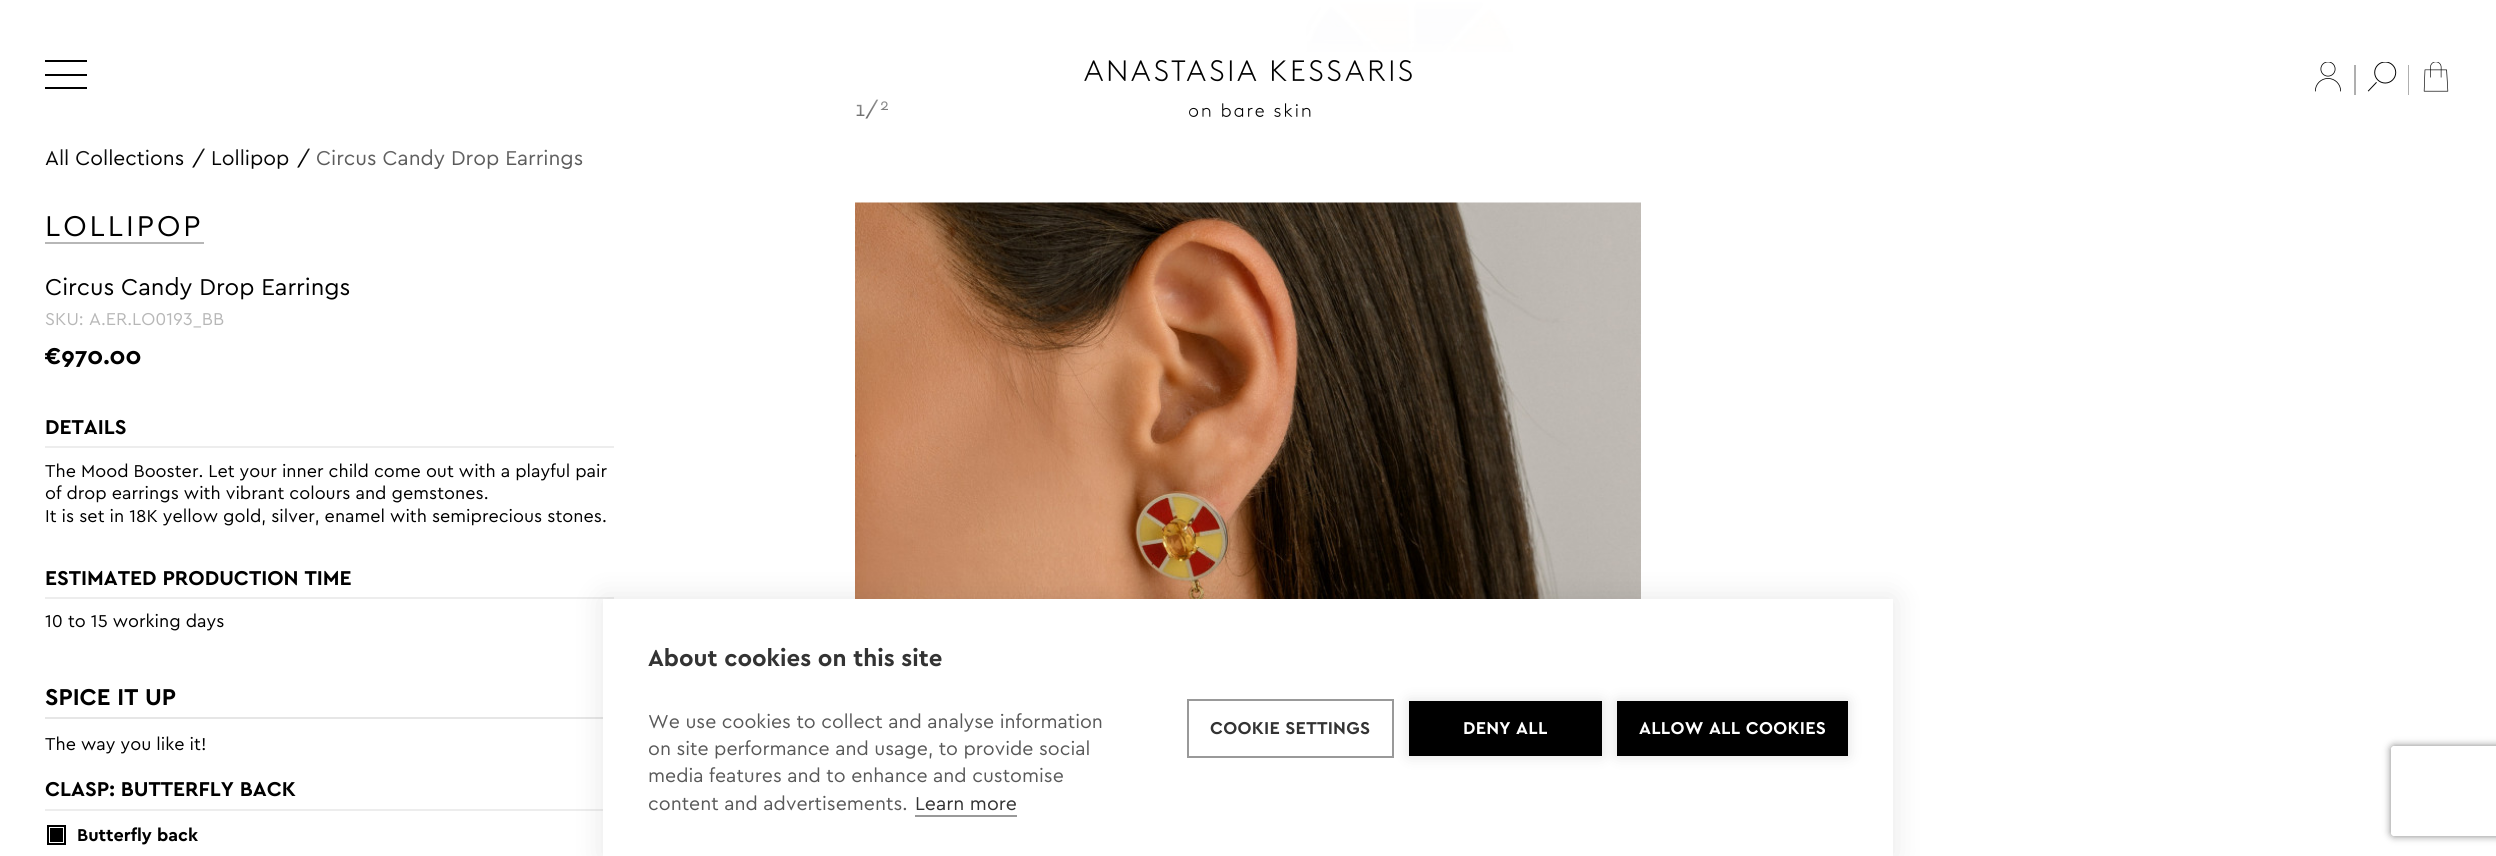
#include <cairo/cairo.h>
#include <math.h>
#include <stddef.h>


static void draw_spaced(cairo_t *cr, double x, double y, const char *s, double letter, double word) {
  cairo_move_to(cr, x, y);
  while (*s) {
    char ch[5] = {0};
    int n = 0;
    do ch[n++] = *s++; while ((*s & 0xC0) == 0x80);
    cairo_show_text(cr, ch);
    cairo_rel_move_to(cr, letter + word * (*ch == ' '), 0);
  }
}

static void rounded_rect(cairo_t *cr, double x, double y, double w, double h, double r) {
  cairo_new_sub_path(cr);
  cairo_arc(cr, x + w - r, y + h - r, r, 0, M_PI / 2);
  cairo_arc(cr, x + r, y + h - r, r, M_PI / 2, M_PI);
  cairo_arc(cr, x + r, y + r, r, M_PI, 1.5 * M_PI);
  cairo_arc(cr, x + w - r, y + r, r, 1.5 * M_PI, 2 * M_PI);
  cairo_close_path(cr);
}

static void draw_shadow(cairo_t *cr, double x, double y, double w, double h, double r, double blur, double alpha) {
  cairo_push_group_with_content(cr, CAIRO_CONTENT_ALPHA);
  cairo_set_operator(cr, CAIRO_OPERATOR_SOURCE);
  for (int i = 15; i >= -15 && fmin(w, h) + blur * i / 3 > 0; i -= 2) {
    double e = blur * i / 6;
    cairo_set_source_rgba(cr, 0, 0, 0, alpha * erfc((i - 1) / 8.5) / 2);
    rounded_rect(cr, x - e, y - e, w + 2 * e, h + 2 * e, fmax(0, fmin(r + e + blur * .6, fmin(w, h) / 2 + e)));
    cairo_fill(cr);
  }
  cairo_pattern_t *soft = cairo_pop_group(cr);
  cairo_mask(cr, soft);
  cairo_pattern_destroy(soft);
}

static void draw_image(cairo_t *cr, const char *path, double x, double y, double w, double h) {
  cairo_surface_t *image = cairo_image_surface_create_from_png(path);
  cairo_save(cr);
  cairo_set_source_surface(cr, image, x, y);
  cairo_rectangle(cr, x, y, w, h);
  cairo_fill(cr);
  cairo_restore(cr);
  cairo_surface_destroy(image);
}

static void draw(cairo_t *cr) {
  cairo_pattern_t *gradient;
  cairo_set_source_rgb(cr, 1, 1, 1);
  cairo_paint(cr);
  draw_image(cr, "images/1.png", 2315, 62, 26, 30);
  cairo_set_source_rgb(cr, 175 / 255.0, 175 / 255.0, 175 / 255.0);
  cairo_rectangle(cr, 2354, 65, 2, 30);
  cairo_fill(cr);
  draw_image(cr, "images/2.png", 2367, 62, 30, 30);
  cairo_rectangle(cr, 2408, 65, 1, 30);
  cairo_fill(cr);
  draw_image(cr, "images/3.png", 2423, 62, 26, 30);
  draw_image(cr, "images/5.png", 1306, 1, 207, 51);
  draw_image(cr, "images/6.png", 855, 202, 786, 397);
  cairo_set_source_rgb(cr, 183 / 255.0, 183 / 255.0, 183 / 255.0);
  cairo_rectangle(cr, 45, 242, 159, 2);
  cairo_fill(cr);
  cairo_set_source_rgb(cr, 237 / 255.0, 237 / 255.0, 237 / 255.0);
  cairo_rectangle(cr, 45, 446, 569, 2);
  cairo_fill(cr);
  cairo_rectangle(cr, 45, 597, 569, 2);
  cairo_fill(cr);
  cairo_set_source_rgb(cr, 230 / 255.0, 230 / 255.0, 230 / 255.0);
  cairo_rectangle(cr, 45, 717, 558, 2);
  cairo_fill(cr);
  cairo_set_source_rgb(cr, 237 / 255.0, 237 / 255.0, 237 / 255.0);
  cairo_rectangle(cr, 45, 809, 558, 2);
  cairo_fill(cr);
  cairo_rectangle(cr, 48, 826, 17, 18);
  cairo_set_source_rgb(cr, 0, 0, 0);
  cairo_stroke(cr);
  cairo_rectangle(cr, 50, 828, 13, 14);
  cairo_fill(cr);
  cairo_set_source_rgb(cr, 0, 0, 0);
  draw_shadow(cr, 603, 599, 1290, 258, 0, 15, 0.1);
  cairo_set_source_rgb(cr, 1, 1, 1);
  cairo_rectangle(cr, 603, 599, 1290, 257);
  cairo_fill(cr);
  cairo_set_source_rgb(cr, 153 / 255.0, 153 / 255.0, 153 / 255.0);
  cairo_rectangle(cr, 915, 815, 102, 2);
  cairo_fill(cr);
  cairo_rectangle(cr, 1188, 700, 205, 57);
  cairo_stroke(cr);
  cairo_set_source_rgb(cr, 0, 0, 0);
  draw_shadow(cr, 1409, 701, 193, 55, 0, 7.5, 0.12);
  cairo_set_source_rgb(cr, 0, 0, 0);
  cairo_rectangle(cr, 1409, 701, 193, 55);
  cairo_fill(cr);
  cairo_set_source_rgb(cr, 0, 0, 0);
  draw_shadow(cr, 1617, 701, 231, 55, 0, 7.5, 0.12);
  cairo_set_source_rgb(cr, 0, 0, 0);
  cairo_rectangle(cr, 1617, 701, 231, 55);
  cairo_fill(cr);
  cairo_save(cr);
  cairo_set_fill_rule(cr, CAIRO_FILL_RULE_EVEN_ODD);
  cairo_new_path(cr);
  cairo_move_to(cr, 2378, 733);
  cairo_line_to(cr, 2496, 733);
  cairo_line_to(cr, 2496, 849);
  cairo_line_to(cr, 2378, 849);
  cairo_close_path(cr);
  cairo_move_to(cr, 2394, 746);
  cairo_line_to(cr, 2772, 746);
  cairo_curve_to(cr, 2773.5, 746, 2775, 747.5, 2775, 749);
  cairo_line_to(cr, 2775, 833);
  cairo_curve_to(cr, 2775, 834.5, 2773.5, 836, 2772, 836);
  cairo_line_to(cr, 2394, 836);
  cairo_curve_to(cr, 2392.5, 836, 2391, 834.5, 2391, 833);
  cairo_line_to(cr, 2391, 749);
  cairo_curve_to(cr, 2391, 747.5, 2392.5, 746, 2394, 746);
  cairo_close_path(cr);
  cairo_clip(cr);
  cairo_set_source_rgb(cr, 128 / 255.0, 128 / 255.0, 128 / 255.0);
  draw_shadow(cr, 2391, 746, 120, 90, 3, 4, 1);
  cairo_restore(cr);
  cairo_select_font_face(cr, "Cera", CAIRO_FONT_SLANT_NORMAL, CAIRO_FONT_WEIGHT_NORMAL);
  cairo_set_font_size(cr, 21);
  cairo_move_to(cr, 855, 116);
  cairo_show_text(cr, "1/");
  cairo_set_font_size(cr, 16);
  cairo_move_to(cr, 880, 110);
  cairo_show_text(cr, "2");
  cairo_set_font_size(cr, 21);
  cairo_move_to(cr, 45, 165);
  cairo_show_text(cr, "All Collections");
  cairo_move_to(cr, 192, 165);
  cairo_show_text(cr, "/ Lollipop");
  cairo_move_to(cr, 297, 165);
  cairo_show_text(cr, "/");
  cairo_set_source_rgb(cr, 89 / 255.0, 89 / 255.0, 89 / 255.0);
  cairo_move_to(cr, 316, 165);
  cairo_show_text(cr, "Circus Candy Drop Earrings");
  gradient = cairo_pattern_create_linear(1248, 0, 1248, 165);
  cairo_pattern_add_color_stop_rgba(gradient, 0, 1, 1, 1, 1);
  cairo_pattern_add_color_stop_rgba(gradient, 1, 1, 1, 1, 0);
  cairo_set_source(cr, gradient);
  cairo_pattern_destroy(gradient);
  cairo_rectangle(cr, 47, 1, 1466, 160);
  cairo_fill(cr);
  draw_image(cr, "images/4.png", 1084, 60, 328, 57);
  cairo_set_source_rgb(cr, 0, 0, 0);
  cairo_rectangle(cr, 45, 87, 42, 2);
  cairo_fill(cr);
  cairo_rectangle(cr, 45, 60, 42, 2);
  cairo_fill(cr);
  cairo_rectangle(cr, 45, 74, 42, 2);
  cairo_fill(cr);
  gradient = cairo_pattern_create_linear(1248, 0, 1248, 165);
  cairo_pattern_add_color_stop_rgba(gradient, 0, 1, 1, 1, 0.9);
  cairo_pattern_add_color_stop_rgba(gradient, 0.9, 1, 1, 1, 0);
  cairo_set_source(cr, gradient);
  cairo_pattern_destroy(gradient);
  cairo_rectangle(cr, 856, 99, 32, 20);
  cairo_fill(cr);
  cairo_set_font_size(cr, 30);
  cairo_set_source_rgb(cr, 0, 0, 0);
  draw_spaced(cr, 45, 236, "LOLLIPOP", 3, 0);
  cairo_set_font_size(cr, 24);
  cairo_move_to(cr, 45, 295);
  cairo_show_text(cr, "Circus Candy Drop Earrings");
  cairo_set_font_size(cr, 18);
  cairo_set_source_rgb(cr, 183 / 255.0, 183 / 255.0, 183 / 255.0);
  cairo_move_to(cr, 45, 325);
  cairo_show_text(cr, "SKU:");
  cairo_select_font_face(cr, "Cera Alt", CAIRO_FONT_SLANT_NORMAL, CAIRO_FONT_WEIGHT_NORMAL);
  cairo_move_to(cr, 89, 325);
  cairo_show_text(cr, "A.ER.LO0193_BB");
  cairo_select_font_face(cr, "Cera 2", CAIRO_FONT_SLANT_NORMAL, CAIRO_FONT_WEIGHT_NORMAL);
  cairo_set_font_size(cr, 24);
  cairo_set_source_rgb(cr, 0, 0, 0);
  cairo_move_to(cr, 45, 364);
  cairo_show_text(cr, "€970.00");
  cairo_set_font_size(cr, 21);
  cairo_move_to(cr, 45, 434);
  cairo_show_text(cr, "DETAILS");
  cairo_select_font_face(cr, "Cera", CAIRO_FONT_SLANT_NORMAL, CAIRO_FONT_WEIGHT_NORMAL);
  cairo_set_font_size(cr, 18);
  cairo_move_to(cr, 45, 477);
  cairo_show_text(cr, "The Mood Booster. Let your inner child come out with a playful pair");
  cairo_move_to(cr, 45, 499);
  cairo_show_text(cr, "of drop earrings with vibrant colours and gemstones.");
  cairo_select_font_face(cr, "Cera Alt", CAIRO_FONT_SLANT_NORMAL, CAIRO_FONT_WEIGHT_NORMAL);
  cairo_move_to(cr, 45, 522);
  cairo_show_text(cr, "It is set in 18K yellow gold, silver, enamel with semiprecious stones.");
  cairo_select_font_face(cr, "Cera 2", CAIRO_FONT_SLANT_NORMAL, CAIRO_FONT_WEIGHT_NORMAL);
  cairo_set_font_size(cr, 21);
  cairo_move_to(cr, 45, 585);
  cairo_show_text(cr, "ESTIMATED PRODUCTION TIME");
  cairo_select_font_face(cr, "Cera Alt", CAIRO_FONT_SLANT_NORMAL, CAIRO_FONT_WEIGHT_NORMAL);
  cairo_set_font_size(cr, 18);
  cairo_move_to(cr, 45, 627);
  cairo_show_text(cr, "10 to 15 working days");
  cairo_select_font_face(cr, "Cera 2", CAIRO_FONT_SLANT_NORMAL, CAIRO_FONT_WEIGHT_NORMAL);
  cairo_set_font_size(cr, 24);
  cairo_move_to(cr, 45, 705);
  cairo_show_text(cr, "SPICE IT UP");
  cairo_select_font_face(cr, "Cera", CAIRO_FONT_SLANT_NORMAL, CAIRO_FONT_WEIGHT_NORMAL);
  cairo_set_font_size(cr, 18);
  cairo_move_to(cr, 45, 750);
  cairo_show_text(cr, "The way you like it!");
  cairo_select_font_face(cr, "Cera 2", CAIRO_FONT_SLANT_NORMAL, CAIRO_FONT_WEIGHT_NORMAL);
  cairo_set_font_size(cr, 21);
  cairo_move_to(cr, 45, 796);
  cairo_show_text(cr, "CLASP: BUTTERFLY BACK");
  cairo_set_font_size(cr, 18);
  cairo_move_to(cr, 77, 841);
  cairo_show_text(cr, "Butterfly back");
  cairo_set_font_size(cr, 24);
  cairo_set_source_rgb(cr, 51 / 255.0, 51 / 255.0, 51 / 255.0);
  cairo_move_to(cr, 648, 666);
  cairo_show_text(cr, "About cookies on this site");
  cairo_select_font_face(cr, "Cera", CAIRO_FONT_SLANT_NORMAL, CAIRO_FONT_WEIGHT_NORMAL);
  cairo_set_font_size(cr, 19.5);
  cairo_set_source_rgb(cr, 89 / 255.0, 89 / 255.0, 89 / 255.0);
  cairo_move_to(cr, 648, 728);
  cairo_show_text(cr, "We use cookies to collect and analyse information");
  cairo_move_to(cr, 648, 755);
  cairo_show_text(cr, "on site performance and usage, to provide social");
  cairo_move_to(cr, 648, 782);
  cairo_show_text(cr, "media features and to enhance and customise");
  cairo_move_to(cr, 648, 810);
  cairo_show_text(cr, "content and advertisements.");
  cairo_set_source_rgb(cr, 51 / 255.0, 51 / 255.0, 51 / 255.0);
  cairo_move_to(cr, 915, 810);
  cairo_show_text(cr, "Learn more");
  cairo_select_font_face(cr, "Cera 2", CAIRO_FONT_SLANT_NORMAL, CAIRO_FONT_WEIGHT_NORMAL);
  cairo_set_font_size(cr, 18);
  draw_spaced(cr, 1210, 734, "COOKIE SETTINGS", 0.25, 0);
  cairo_set_source_rgb(cr, 1, 1, 1);
  draw_spaced(cr, 1463, 734, "DENY ALL", 0.25, 0);
  draw_spaced(cr, 1639, 734, "ALLOW ALL COOKIES", 0.25, 0);
}

int main(void) {
  cairo_surface_t *surface = cairo_image_surface_create(CAIRO_FORMAT_RGB24, 2496, 856);
  cairo_t *cr = cairo_create(surface);
  cairo_font_options_t *options = cairo_font_options_create();
  cairo_font_options_set_hint_metrics(options, CAIRO_HINT_METRICS_OFF);
  cairo_font_options_set_hint_style(options, CAIRO_HINT_STYLE_NONE);
  cairo_set_font_options(cr, options);
  cairo_set_miter_limit(cr, 4);
  draw(cr);
  cairo_surface_write_to_png(surface, "out.png");
  cairo_font_options_destroy(options);
  cairo_destroy(cr);
  cairo_surface_destroy(surface);
  return 0;
}
